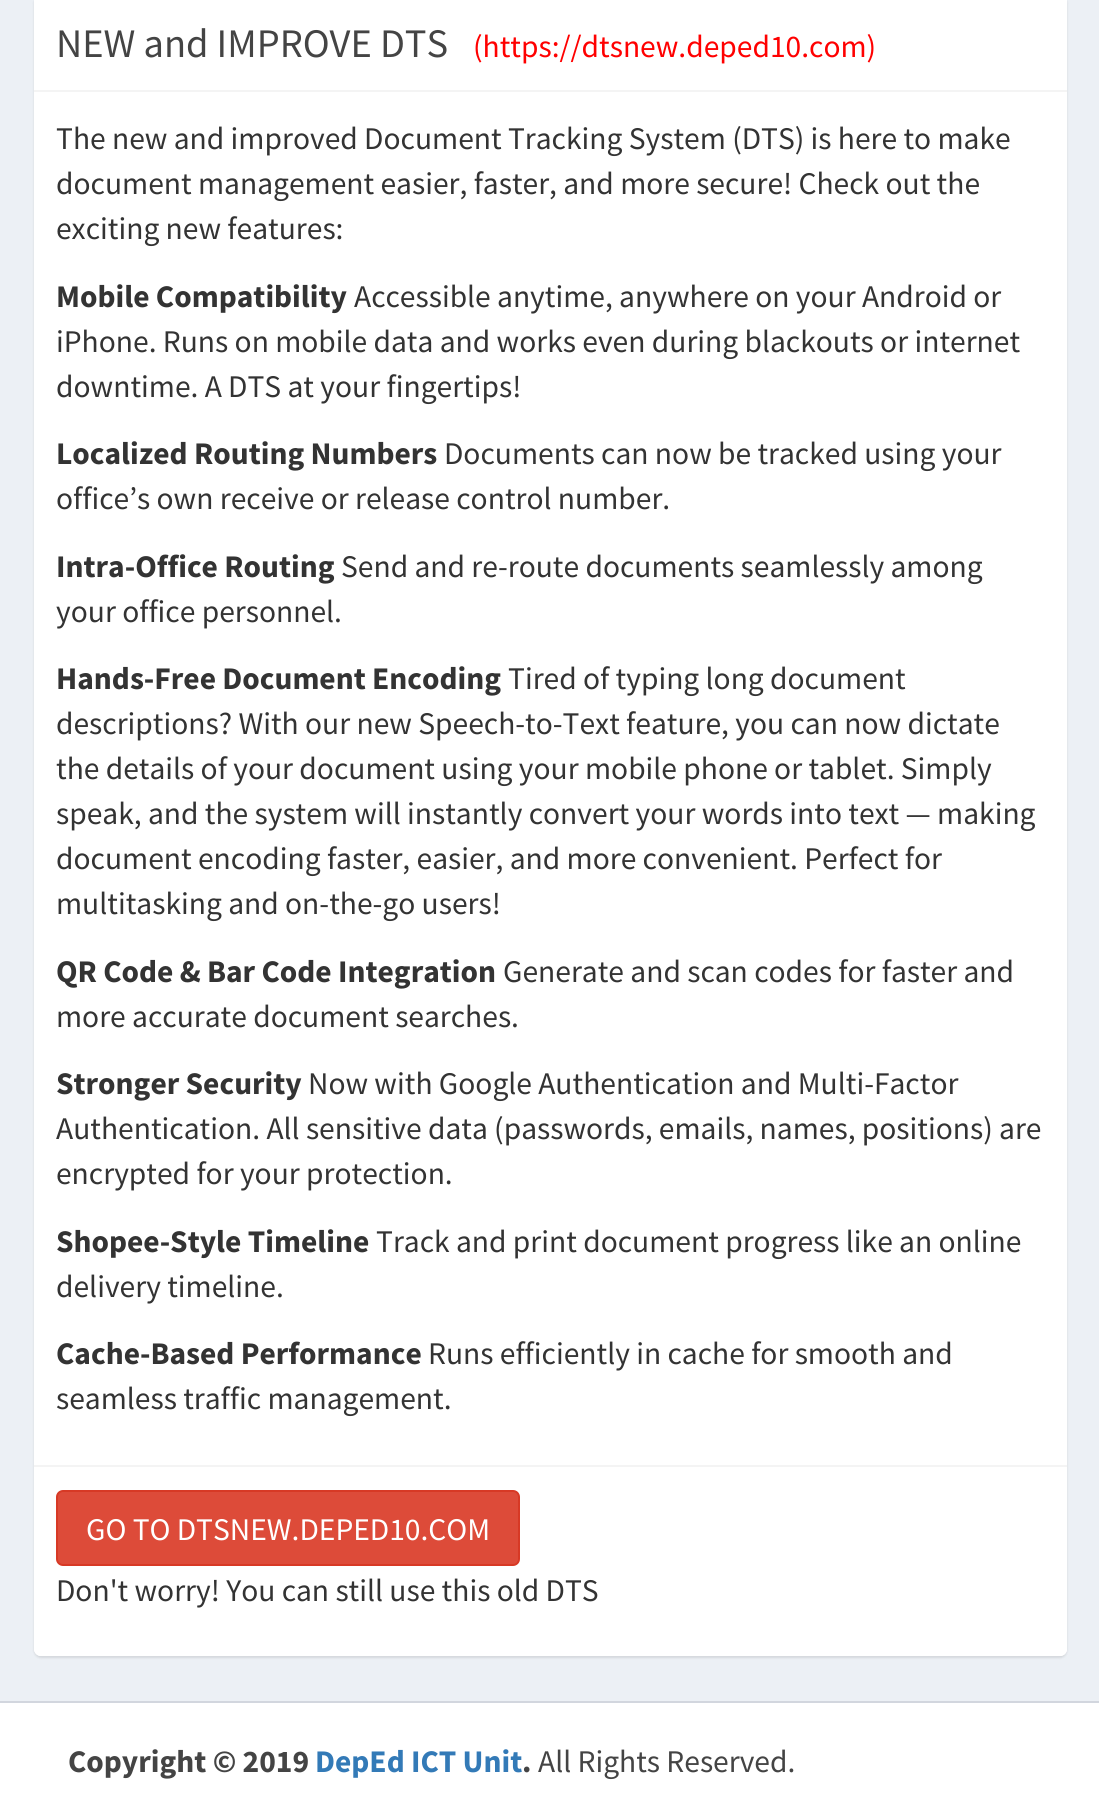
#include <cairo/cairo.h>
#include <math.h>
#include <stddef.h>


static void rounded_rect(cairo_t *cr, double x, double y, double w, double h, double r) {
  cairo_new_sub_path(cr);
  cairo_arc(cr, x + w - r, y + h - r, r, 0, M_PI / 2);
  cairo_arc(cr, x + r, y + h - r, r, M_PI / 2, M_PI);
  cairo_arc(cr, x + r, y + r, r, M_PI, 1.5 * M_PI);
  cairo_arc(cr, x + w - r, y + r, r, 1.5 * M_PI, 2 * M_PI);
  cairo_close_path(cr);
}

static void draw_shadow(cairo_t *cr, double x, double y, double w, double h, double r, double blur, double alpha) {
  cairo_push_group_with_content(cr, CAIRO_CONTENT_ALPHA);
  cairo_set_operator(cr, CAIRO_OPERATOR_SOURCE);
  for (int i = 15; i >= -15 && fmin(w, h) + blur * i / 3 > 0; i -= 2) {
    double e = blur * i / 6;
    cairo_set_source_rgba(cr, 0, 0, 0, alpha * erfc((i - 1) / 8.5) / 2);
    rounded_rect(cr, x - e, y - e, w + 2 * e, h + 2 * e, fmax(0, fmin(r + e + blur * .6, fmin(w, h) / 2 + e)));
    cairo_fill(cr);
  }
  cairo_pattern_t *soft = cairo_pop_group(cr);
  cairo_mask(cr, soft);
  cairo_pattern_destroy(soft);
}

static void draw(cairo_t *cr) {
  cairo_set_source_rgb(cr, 236 / 255.0, 240 / 255.0, 245 / 255.0);
  cairo_paint(cr);
  cairo_set_source_rgb(cr, 0, 0, 0);
  draw_shadow(cr, 34, -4, 1033, 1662, 7, 1, 0.1);
  cairo_set_source_rgb(cr, 1, 1, 1);
  rounded_rect(cr, 34, -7, 1033, 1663, 7);
  cairo_fill(cr);
  cairo_set_source_rgb(cr, 244 / 255.0, 244 / 255.0, 244 / 255.0);
  cairo_rectangle(cr, 34, 90, 1033, 2);
  cairo_fill(cr);
  cairo_set_source_rgb(cr, 1, 1, 1);
  cairo_new_path(cr);
  cairo_move_to(cr, 34, 1465);
  cairo_line_to(cr, 1067, 1465);
  cairo_line_to(cr, 1067, 1649);
  cairo_curve_to(cr, 1067, 1653, 1064, 1656, 1060, 1656);
  cairo_line_to(cr, 41, 1656);
  cairo_curve_to(cr, 37, 1656, 34, 1653, 34, 1649);
  cairo_close_path(cr);
  cairo_fill(cr);
  cairo_set_source_rgb(cr, 244 / 255.0, 244 / 255.0, 244 / 255.0);
  cairo_rectangle(cr, 34, 1465, 1033, 2);
  cairo_fill(cr);
  cairo_set_source_rgb(cr, 221 / 255.0, 75 / 255.0, 57 / 255.0);
  rounded_rect(cr, 57, 1491, 462, 74, 6);
  cairo_fill_preserve(cr);
  cairo_set_source_rgb(cr, 215 / 255.0, 57 / 255.0, 37 / 255.0);
  cairo_stroke(cr);
  cairo_set_source_rgb(cr, 1, 1, 1);
  cairo_rectangle(cr, 0, 1703, 1099, 111);
  cairo_fill(cr);
  cairo_set_source_rgb(cr, 210 / 255.0, 214 / 255.0, 222 / 255.0);
  cairo_rectangle(cr, 0, 1701, 1099, 2);
  cairo_fill(cr);
  cairo_select_font_face(cr, "Source Sans Pro", CAIRO_FONT_SLANT_NORMAL, CAIRO_FONT_WEIGHT_NORMAL);
  cairo_set_font_size(cr, 40.5);
  cairo_set_source_rgb(cr, 68 / 255.0, 68 / 255.0, 68 / 255.0);
  cairo_move_to(cr, 56, 57);
  cairo_show_text(cr, "NEW and IMPROVE DTS");
  cairo_set_font_size(cr, 31.5);
  cairo_set_source_rgb(cr, 1, 0, 0);
  cairo_move_to(cr, 473, 57);
  cairo_show_text(cr, "(https://dtsnew.deped10.com)");
  cairo_set_source_rgb(cr, 51 / 255.0, 51 / 255.0, 51 / 255.0);
  cairo_move_to(cr, 56, 149);
  cairo_show_text(cr, "The new and improved Document Tracking System (DTS) is here to make");
  cairo_move_to(cr, 56, 194);
  cairo_show_text(cr, "document management easier, faster, and more secure! Check out the");
  cairo_move_to(cr, 56, 239);
  cairo_show_text(cr, "exciting new features:");
  cairo_select_font_face(cr, "Source Sans Pro", CAIRO_FONT_SLANT_NORMAL, CAIRO_FONT_WEIGHT_BOLD);
  cairo_move_to(cr, 56, 307);
  cairo_show_text(cr, "Mobile Compatibility");
  cairo_select_font_face(cr, "Source Sans Pro", CAIRO_FONT_SLANT_NORMAL, CAIRO_FONT_WEIGHT_NORMAL);
  cairo_move_to(cr, 354, 307);
  cairo_show_text(cr, "Accessible anytime, anywhere on your Android or");
  cairo_move_to(cr, 56, 352);
  cairo_show_text(cr, "iPhone. Runs on mobile data and works even during blackouts or internet");
  cairo_move_to(cr, 56, 397);
  cairo_show_text(cr, "downtime. A DTS at your fingertips!");
  cairo_select_font_face(cr, "Source Sans Pro", CAIRO_FONT_SLANT_NORMAL, CAIRO_FONT_WEIGHT_BOLD);
  cairo_move_to(cr, 56, 464);
  cairo_show_text(cr, "Localized Routing Numbers");
  cairo_select_font_face(cr, "Source Sans Pro", CAIRO_FONT_SLANT_NORMAL, CAIRO_FONT_WEIGHT_NORMAL);
  cairo_move_to(cr, 444, 464);
  cairo_show_text(cr, "Documents can now be tracked using your");
  cairo_move_to(cr, 56, 509);
  cairo_show_text(cr, "office’s own receive or release control number.");
  cairo_select_font_face(cr, "Source Sans Pro", CAIRO_FONT_SLANT_NORMAL, CAIRO_FONT_WEIGHT_BOLD);
  cairo_move_to(cr, 56, 577);
  cairo_show_text(cr, "Intra-Office Routing");
  cairo_select_font_face(cr, "Source Sans Pro", CAIRO_FONT_SLANT_NORMAL, CAIRO_FONT_WEIGHT_NORMAL);
  cairo_move_to(cr, 341, 577);
  cairo_show_text(cr, "Send and re-route documents seamlessly among");
  cairo_move_to(cr, 56, 622);
  cairo_show_text(cr, "your office personnel.");
  cairo_select_font_face(cr, "Source Sans Pro", CAIRO_FONT_SLANT_NORMAL, CAIRO_FONT_WEIGHT_BOLD);
  cairo_move_to(cr, 56, 689);
  cairo_show_text(cr, "Hands-Free Document Encoding");
  cairo_select_font_face(cr, "Source Sans Pro", CAIRO_FONT_SLANT_NORMAL, CAIRO_FONT_WEIGHT_NORMAL);
  cairo_move_to(cr, 508, 689);
  cairo_show_text(cr, "Tired of typing long document");
  cairo_move_to(cr, 56, 734);
  cairo_show_text(cr, "descriptions? With our new Speech-to-Text feature, you can now dictate");
  cairo_move_to(cr, 56, 779);
  cairo_show_text(cr, "the details of your document using your mobile phone or tablet. Simply");
  cairo_move_to(cr, 56, 824);
  cairo_show_text(cr, "speak, and the system will instantly convert your words into text — making");
  cairo_move_to(cr, 56, 869);
  cairo_show_text(cr, "document encoding faster, easier, and more convenient. Perfect for");
  cairo_move_to(cr, 56, 914);
  cairo_show_text(cr, "multitasking and on-the-go users!");
  cairo_select_font_face(cr, "Source Sans Pro", CAIRO_FONT_SLANT_NORMAL, CAIRO_FONT_WEIGHT_BOLD);
  cairo_move_to(cr, 56, 982);
  cairo_show_text(cr, "QR Code & Bar Code Integration");
  cairo_select_font_face(cr, "Source Sans Pro", CAIRO_FONT_SLANT_NORMAL, CAIRO_FONT_WEIGHT_NORMAL);
  cairo_move_to(cr, 503, 982);
  cairo_show_text(cr, "Generate and scan codes for faster and");
  cairo_move_to(cr, 56, 1027);
  cairo_show_text(cr, "more accurate document searches.");
  cairo_select_font_face(cr, "Source Sans Pro", CAIRO_FONT_SLANT_NORMAL, CAIRO_FONT_WEIGHT_BOLD);
  cairo_move_to(cr, 56, 1094);
  cairo_show_text(cr, "Stronger Security");
  cairo_select_font_face(cr, "Source Sans Pro", CAIRO_FONT_SLANT_NORMAL, CAIRO_FONT_WEIGHT_NORMAL);
  cairo_move_to(cr, 308, 1094);
  cairo_show_text(cr, "Now with Google Authentication and Multi-Factor");
  cairo_move_to(cr, 56, 1139);
  cairo_show_text(cr, "Authentication. All sensitive data (passwords, emails, names, positions) are");
  cairo_move_to(cr, 56, 1184);
  cairo_show_text(cr, "encrypted for your protection.");
  cairo_select_font_face(cr, "Source Sans Pro", CAIRO_FONT_SLANT_NORMAL, CAIRO_FONT_WEIGHT_BOLD);
  cairo_move_to(cr, 56, 1252);
  cairo_show_text(cr, "Shopee-Style Timeline");
  cairo_select_font_face(cr, "Source Sans Pro", CAIRO_FONT_SLANT_NORMAL, CAIRO_FONT_WEIGHT_NORMAL);
  cairo_move_to(cr, 376, 1252);
  cairo_show_text(cr, "Track and print document progress like an online");
  cairo_move_to(cr, 56, 1297);
  cairo_show_text(cr, "delivery timeline.");
  cairo_select_font_face(cr, "Source Sans Pro", CAIRO_FONT_SLANT_NORMAL, CAIRO_FONT_WEIGHT_BOLD);
  cairo_move_to(cr, 56, 1364);
  cairo_show_text(cr, "Cache-Based Performance");
  cairo_select_font_face(cr, "Source Sans Pro", CAIRO_FONT_SLANT_NORMAL, CAIRO_FONT_WEIGHT_NORMAL);
  cairo_move_to(cr, 428, 1364);
  cairo_show_text(cr, "Runs efficiently in cache for smooth and");
  cairo_move_to(cr, 56, 1409);
  cairo_show_text(cr, "seamless traffic management.");
  cairo_set_source_rgb(cr, 1, 1, 1);
  cairo_move_to(cr, 86, 1540);
  cairo_show_text(cr, "GO TO DTSNEW.DEPED10.COM");
  cairo_set_source_rgb(cr, 51 / 255.0, 51 / 255.0, 51 / 255.0);
  cairo_move_to(cr, 56, 1601);
  cairo_show_text(cr, "Don't worry! You can still use this old DTS");
  cairo_select_font_face(cr, "Source Sans Pro", CAIRO_FONT_SLANT_NORMAL, CAIRO_FONT_WEIGHT_BOLD);
  cairo_set_source_rgb(cr, 68 / 255.0, 68 / 255.0, 68 / 255.0);
  cairo_move_to(cr, 68, 1772);
  cairo_show_text(cr, "Copyright © 2019");
  cairo_set_source_rgb(cr, 51 / 255.0, 122 / 255.0, 183 / 255.0);
  cairo_move_to(cr, 315, 1772);
  cairo_show_text(cr, "DepEd ICT Unit");
  cairo_set_source_rgb(cr, 68 / 255.0, 68 / 255.0, 68 / 255.0);
  cairo_move_to(cr, 522, 1772);
  cairo_show_text(cr, ".");
  cairo_select_font_face(cr, "Source Sans Pro", CAIRO_FONT_SLANT_NORMAL, CAIRO_FONT_WEIGHT_NORMAL);
  cairo_move_to(cr, 538, 1772);
  cairo_show_text(cr, "All Rights Reserved.");
}

int main(void) {
  cairo_surface_t *surface = cairo_image_surface_create(CAIRO_FORMAT_RGB24, 1099, 1814);
  cairo_t *cr = cairo_create(surface);
  cairo_font_options_t *options = cairo_font_options_create();
  cairo_font_options_set_hint_metrics(options, CAIRO_HINT_METRICS_OFF);
  cairo_font_options_set_hint_style(options, CAIRO_HINT_STYLE_NONE);
  cairo_set_font_options(cr, options);
  cairo_set_miter_limit(cr, 4);
  draw(cr);
  cairo_surface_write_to_png(surface, "out.png");
  cairo_font_options_destroy(options);
  cairo_destroy(cr);
  cairo_surface_destroy(surface);
  return 0;
}
